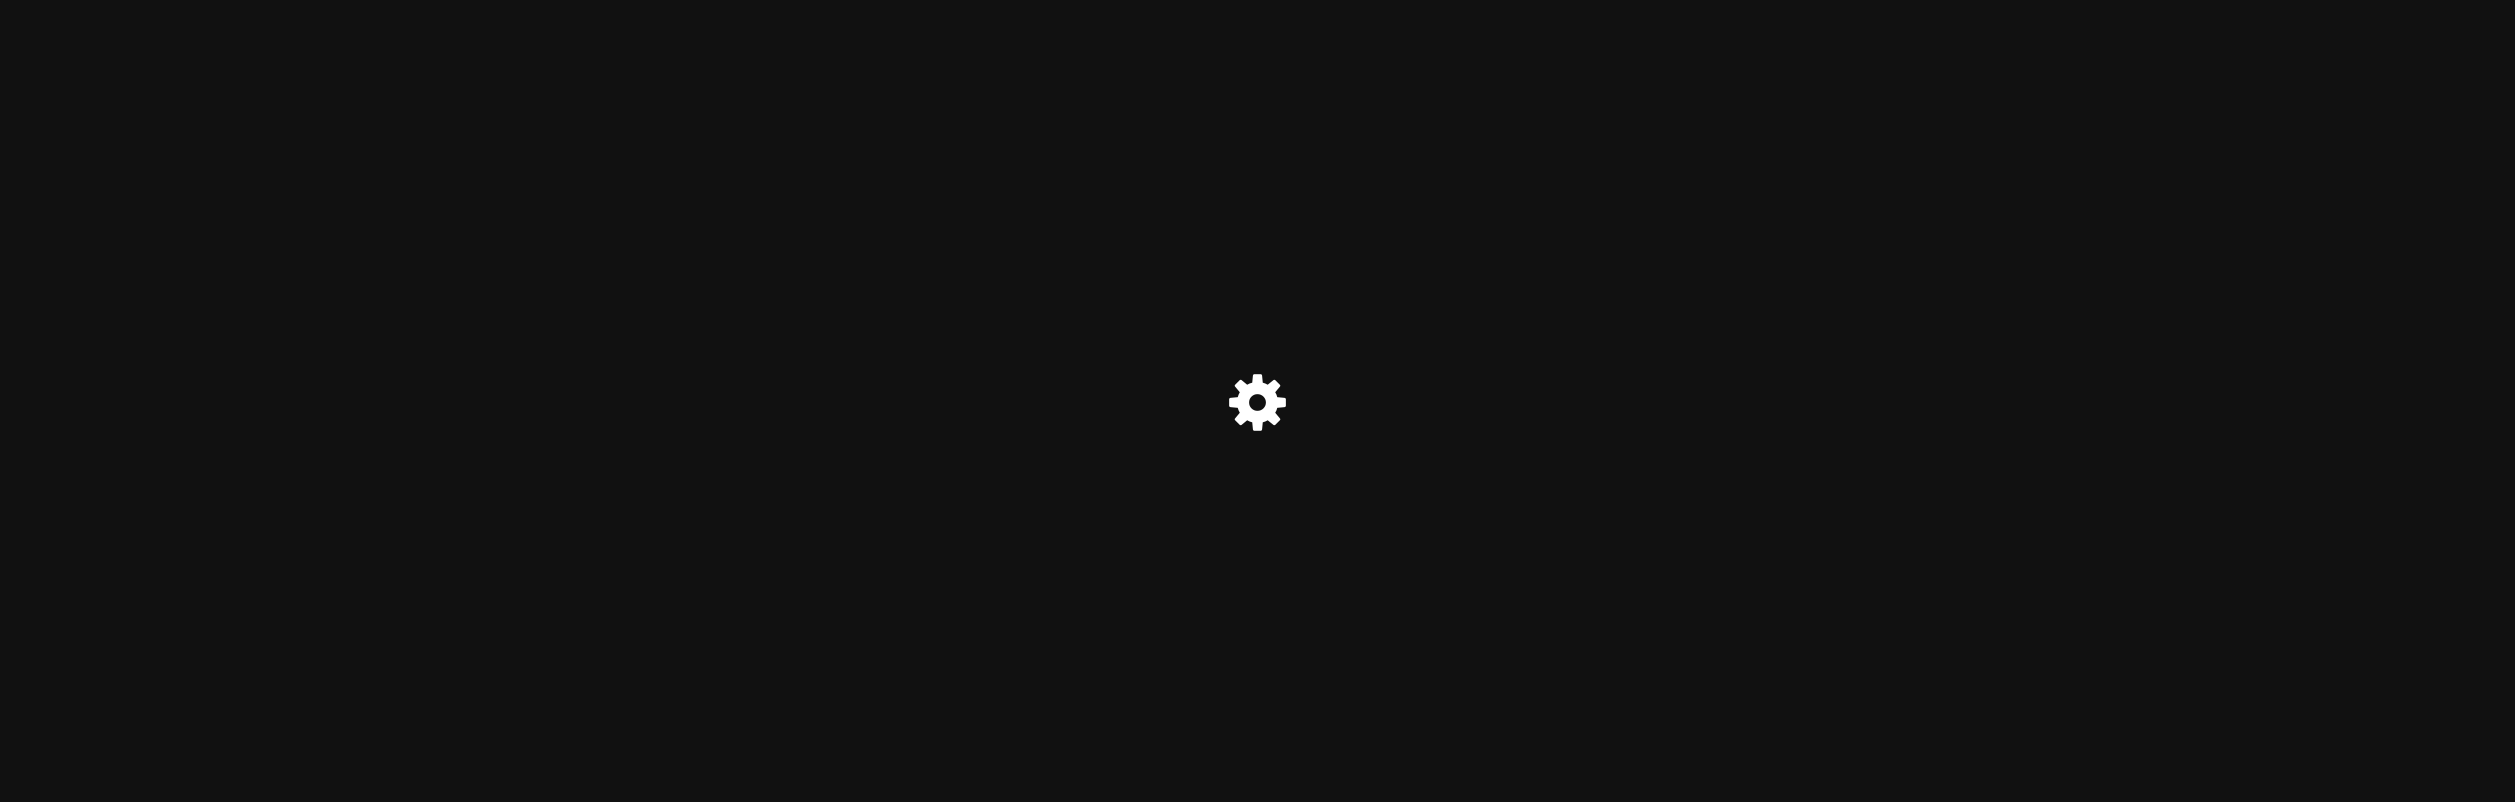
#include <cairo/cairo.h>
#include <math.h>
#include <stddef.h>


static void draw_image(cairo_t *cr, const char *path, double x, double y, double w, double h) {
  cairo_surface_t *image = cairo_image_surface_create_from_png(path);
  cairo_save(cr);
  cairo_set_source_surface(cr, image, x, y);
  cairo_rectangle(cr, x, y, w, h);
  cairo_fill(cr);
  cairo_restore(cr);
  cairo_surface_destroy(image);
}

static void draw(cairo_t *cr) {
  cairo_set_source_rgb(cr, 17 / 255.0, 17 / 255.0, 17 / 255.0);
  cairo_paint(cr);
  draw_image(cr, "images/1.png", 1229, 374, 57, 57);
}

int main(void) {
  cairo_surface_t *surface = cairo_image_surface_create(CAIRO_FORMAT_RGB24, 2515, 802);
  cairo_t *cr = cairo_create(surface);
  cairo_font_options_t *options = cairo_font_options_create();
  cairo_font_options_set_hint_metrics(options, CAIRO_HINT_METRICS_OFF);
  cairo_font_options_set_hint_style(options, CAIRO_HINT_STYLE_NONE);
  cairo_set_font_options(cr, options);
  cairo_set_miter_limit(cr, 4);
  draw(cr);
  cairo_surface_write_to_png(surface, "out.png");
  cairo_font_options_destroy(options);
  cairo_destroy(cr);
  cairo_surface_destroy(surface);
  return 0;
}
